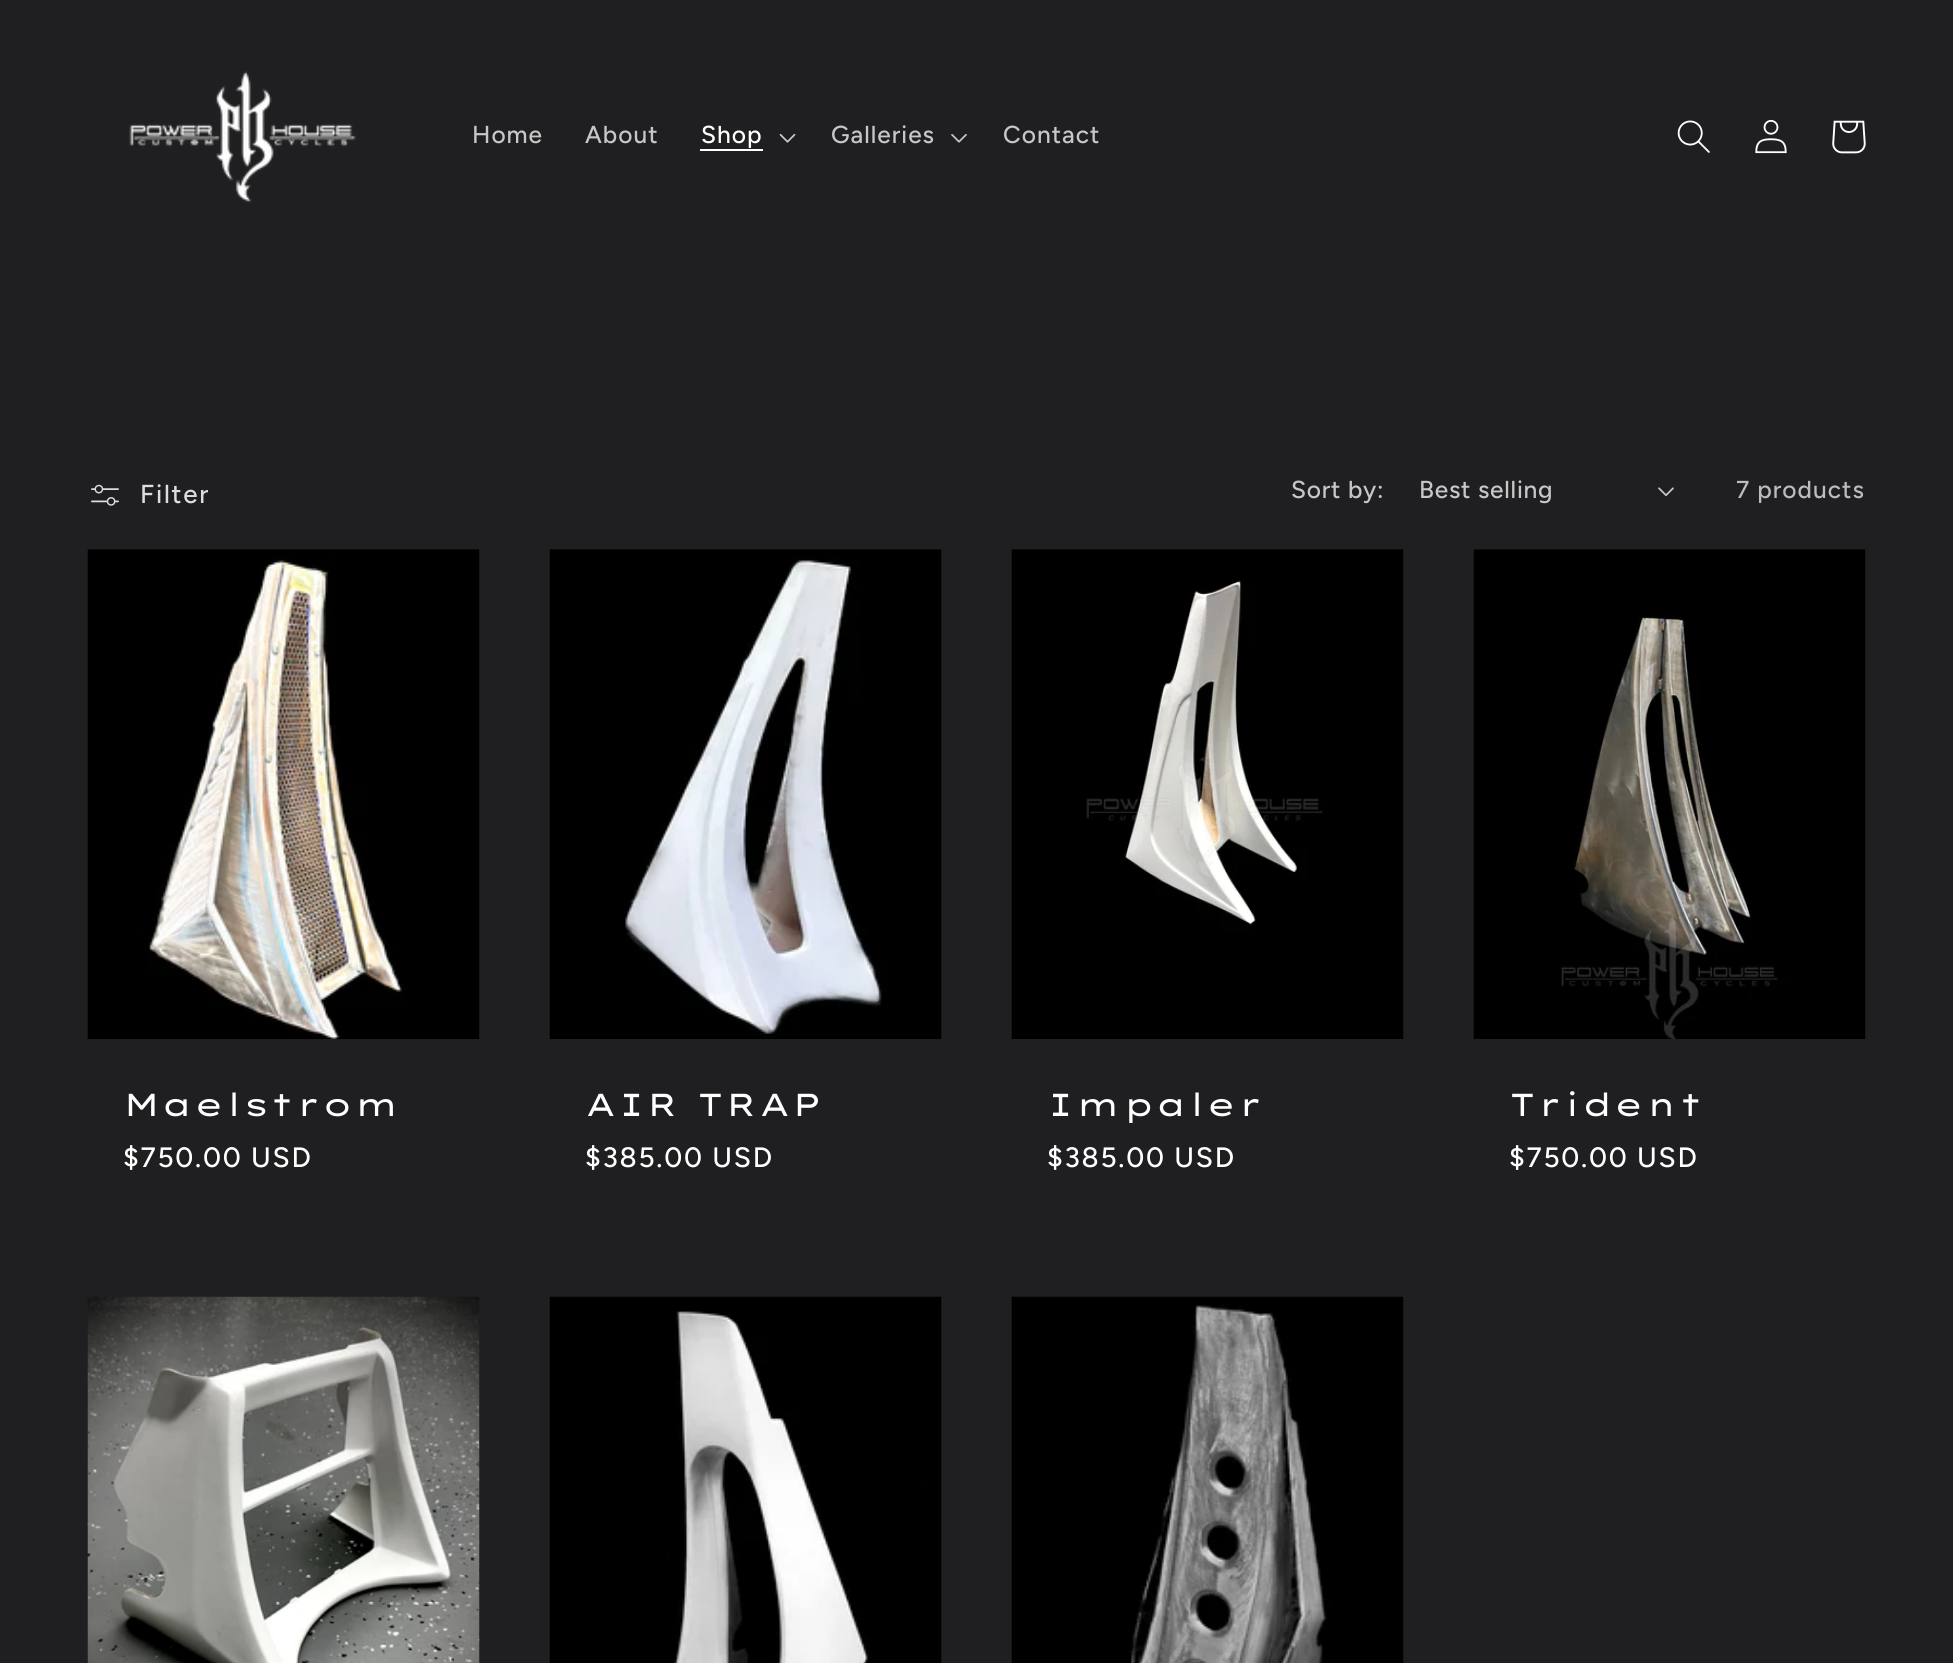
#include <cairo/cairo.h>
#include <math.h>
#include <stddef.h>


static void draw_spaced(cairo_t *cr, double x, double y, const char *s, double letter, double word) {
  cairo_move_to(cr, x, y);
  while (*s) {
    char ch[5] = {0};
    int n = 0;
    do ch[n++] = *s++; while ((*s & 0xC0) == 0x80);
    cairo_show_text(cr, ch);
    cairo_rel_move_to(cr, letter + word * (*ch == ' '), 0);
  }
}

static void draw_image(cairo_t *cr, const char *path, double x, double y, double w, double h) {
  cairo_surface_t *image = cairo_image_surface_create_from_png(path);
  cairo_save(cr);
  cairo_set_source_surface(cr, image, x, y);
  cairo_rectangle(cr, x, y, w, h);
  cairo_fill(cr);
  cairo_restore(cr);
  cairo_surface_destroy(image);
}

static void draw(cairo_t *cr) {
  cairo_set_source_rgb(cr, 31 / 255.0, 31 / 255.0, 33 / 255.0);
  cairo_paint(cr);
  draw_image(cr, "images/1.png", 129, 71, 227, 132);
  cairo_set_source_rgb(cr, 1, 1, 1);
  cairo_rectangle(cr, 700, 149, 63, 2);
  cairo_fill(cr);
  draw_image(cr, "images/2.png", 779, 133, 17, 10);
  draw_image(cr, "images/3.png", 951, 134, 16, 9);
  draw_image(cr, "images/4.png", 1677, 120, 33, 33);
  draw_image(cr, "images/5.png", 1755, 119, 32, 35);
  draw_image(cr, "images/6.png", 1832, 120, 34, 34);
  draw_image(cr, "images/7.png", 91, 484, 28, 22);
  draw_image(cr, "images/8.png", 1658, 487, 16, 9);
  draw_image(cr, "images/9.png", 87, 549, 393, 491);
  draw_image(cr, "images/10.png", 549, 549, 393, 490);
  draw_image(cr, "images/11.png", 1011, 549, 393, 490);
  draw_image(cr, "images/12.png", 1473, 549, 393, 490);
  draw_image(cr, "images/13.png", 87, 1296, 393, 367);
  draw_image(cr, "images/14.png", 549, 1296, 393, 367);
  draw_image(cr, "images/15.png", 1011, 1296, 393, 367);
  cairo_select_font_face(cr, "Figtree Medium", CAIRO_FONT_SLANT_NORMAL, CAIRO_FONT_WEIGHT_NORMAL);
  cairo_set_font_size(cr, 24.5);
  cairo_set_source_rgb(cr, 199 / 255.0, 199 / 255.0, 200 / 255.0);
  draw_spaced(cr, 472, 143, "Home", 1, 0);
  draw_spaced(cr, 585, 143, "About", 1, 0);
  cairo_set_source_rgb(cr, 1, 1, 1);
  draw_spaced(cr, 701, 143, "Shop", 1, 0);
  cairo_set_source_rgb(cr, 199 / 255.0, 199 / 255.0, 200 / 255.0);
  draw_spaced(cr, 831, 143, "Galleries", 1, 0);
  draw_spaced(cr, 1003, 143, "Contact", 1, 0);
  cairo_set_font_size(cr, 26);
  cairo_set_source_rgb(cr, 221 / 255.0, 221 / 255.0, 222 / 255.0);
  draw_spaced(cr, 140, 503, "Filter", 1.75, 0);
  cairo_set_font_size(cr, 24.5);
  cairo_set_source_rgb(cr, 199 / 255.0, 199 / 255.0, 200 / 255.0);
  draw_spaced(cr, 1291, 498, "Sort by:", 0.75, 0);
  draw_spaced(cr, 1419, 498, "Best selling", 0.75, 0);
  cairo_set_source_rgb(cr, 188 / 255.0, 188 / 255.0, 188 / 255.0);
  draw_spaced(cr, 1736, 498, "7 products", 1, 0);
  cairo_select_font_face(cr, "Lexend Zetta", CAIRO_FONT_SLANT_NORMAL, CAIRO_FONT_WEIGHT_NORMAL);
  cairo_set_font_size(cr, 31.75);
  cairo_set_source_rgb(cr, 1, 1, 1);
  draw_spaced(cr, 123, 1116, "Maelstrom", 1.5, 0);
  cairo_select_font_face(cr, "Figtree Medium", CAIRO_FONT_SLANT_NORMAL, CAIRO_FONT_WEIGHT_NORMAL);
  cairo_set_font_size(cr, 28);
  draw_spaced(cr, 123, 1167, "$750.00 USD", 1.75, 0);
  cairo_select_font_face(cr, "Lexend Zetta", CAIRO_FONT_SLANT_NORMAL, CAIRO_FONT_WEIGHT_NORMAL);
  cairo_set_font_size(cr, 31.75);
  draw_spaced(cr, 585, 1116, "AIR TRAP", 1.5, 0);
  cairo_select_font_face(cr, "Figtree Medium", CAIRO_FONT_SLANT_NORMAL, CAIRO_FONT_WEIGHT_NORMAL);
  cairo_set_font_size(cr, 28);
  draw_spaced(cr, 585, 1167, "$385.00 USD", 1.75, 0);
  cairo_select_font_face(cr, "Lexend Zetta", CAIRO_FONT_SLANT_NORMAL, CAIRO_FONT_WEIGHT_NORMAL);
  cairo_set_font_size(cr, 31.75);
  draw_spaced(cr, 1047, 1116, "Impaler", 1.5, 0);
  cairo_select_font_face(cr, "Figtree Medium", CAIRO_FONT_SLANT_NORMAL, CAIRO_FONT_WEIGHT_NORMAL);
  cairo_set_font_size(cr, 28);
  draw_spaced(cr, 1047, 1167, "$385.00 USD", 1.75, 0);
  cairo_select_font_face(cr, "Lexend Zetta", CAIRO_FONT_SLANT_NORMAL, CAIRO_FONT_WEIGHT_NORMAL);
  cairo_set_font_size(cr, 31.75);
  draw_spaced(cr, 1509, 1116, "Trident", 1.5, 0);
  cairo_select_font_face(cr, "Figtree Medium", CAIRO_FONT_SLANT_NORMAL, CAIRO_FONT_WEIGHT_NORMAL);
  cairo_set_font_size(cr, 28);
  draw_spaced(cr, 1509, 1167, "$750.00 USD", 1.75, 0);
}

int main(void) {
  cairo_surface_t *surface = cairo_image_surface_create(CAIRO_FORMAT_RGB24, 1953, 1663);
  cairo_t *cr = cairo_create(surface);
  cairo_font_options_t *options = cairo_font_options_create();
  cairo_font_options_set_hint_metrics(options, CAIRO_HINT_METRICS_OFF);
  cairo_font_options_set_hint_style(options, CAIRO_HINT_STYLE_NONE);
  cairo_set_font_options(cr, options);
  cairo_set_miter_limit(cr, 4);
  draw(cr);
  cairo_surface_write_to_png(surface, "out.png");
  cairo_font_options_destroy(options);
  cairo_destroy(cr);
  cairo_surface_destroy(surface);
  return 0;
}
